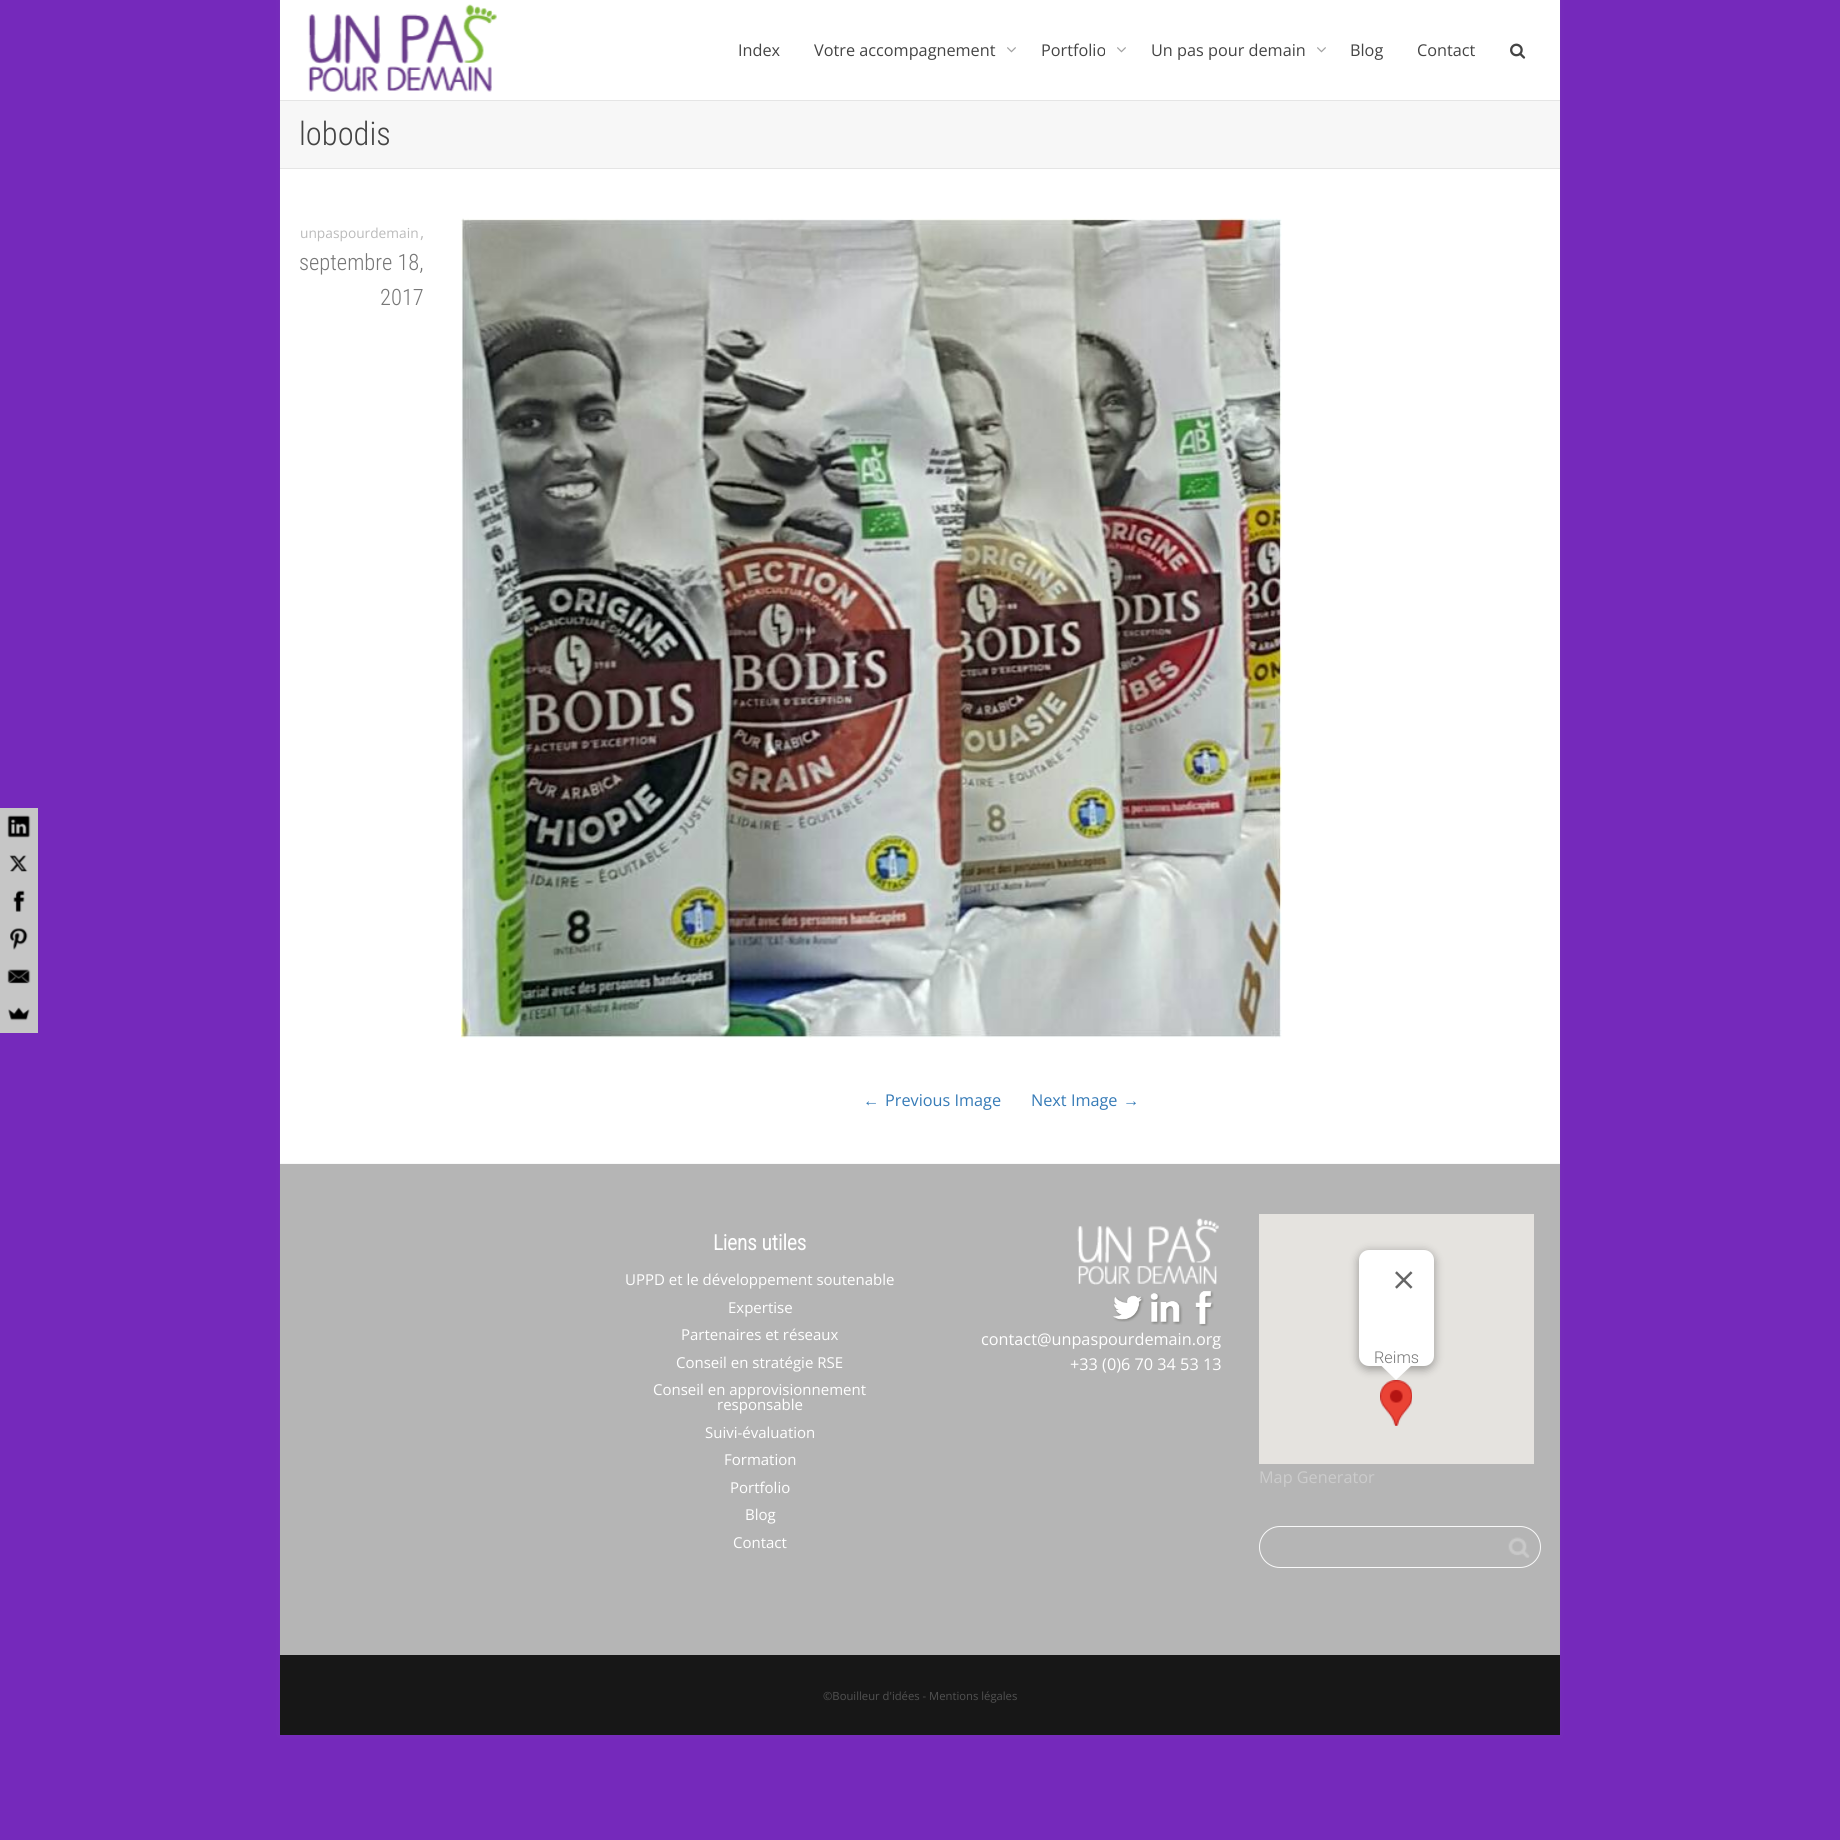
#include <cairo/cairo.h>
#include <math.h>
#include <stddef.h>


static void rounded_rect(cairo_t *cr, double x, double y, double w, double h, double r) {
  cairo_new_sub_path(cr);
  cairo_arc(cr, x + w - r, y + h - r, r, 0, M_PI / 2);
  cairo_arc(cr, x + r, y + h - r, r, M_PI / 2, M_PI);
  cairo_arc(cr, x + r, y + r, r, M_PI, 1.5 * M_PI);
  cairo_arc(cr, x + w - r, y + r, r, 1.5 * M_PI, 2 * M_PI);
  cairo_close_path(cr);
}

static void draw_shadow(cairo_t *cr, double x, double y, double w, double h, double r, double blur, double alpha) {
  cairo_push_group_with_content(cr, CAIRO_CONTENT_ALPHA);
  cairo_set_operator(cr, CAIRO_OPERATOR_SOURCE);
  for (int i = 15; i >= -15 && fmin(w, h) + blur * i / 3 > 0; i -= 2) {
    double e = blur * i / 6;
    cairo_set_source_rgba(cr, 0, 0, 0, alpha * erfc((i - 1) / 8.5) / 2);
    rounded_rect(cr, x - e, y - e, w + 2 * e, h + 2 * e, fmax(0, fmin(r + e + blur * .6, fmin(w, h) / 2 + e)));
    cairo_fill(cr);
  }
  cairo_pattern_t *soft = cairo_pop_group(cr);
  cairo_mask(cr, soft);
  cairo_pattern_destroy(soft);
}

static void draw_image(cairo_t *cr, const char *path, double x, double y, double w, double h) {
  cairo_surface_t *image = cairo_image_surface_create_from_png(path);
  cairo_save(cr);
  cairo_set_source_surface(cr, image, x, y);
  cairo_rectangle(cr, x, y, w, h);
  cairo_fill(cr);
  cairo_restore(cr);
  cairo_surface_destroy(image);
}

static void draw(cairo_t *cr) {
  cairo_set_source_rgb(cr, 117 / 255.0, 41 / 255.0, 187 / 255.0);
  cairo_paint(cr);
  cairo_set_source_rgb(cr, 198 / 255.0, 198 / 255.0, 198 / 255.0);
  cairo_rectangle(cr, 0, 808, 38, 225);
  cairo_fill(cr);
  draw_image(cr, "images/1.png", 7, 815, 24, 23);
  draw_image(cr, "images/2.png", 9, 855, 19, 17);
  draw_image(cr, "images/3.png", 13, 890, 12, 22);
  draw_image(cr, "images/4.png", 10, 928, 18, 22);
  draw_image(cr, "images/5.png", 7, 969, 24, 15);
  draw_image(cr, "images/6.png", 8, 1007, 22, 14);
  cairo_set_source_rgb(cr, 153 / 255.0, 153 / 255.0, 153 / 255.0);
  draw_shadow(cr, 280, 0, 1280, 1735, 0, 2, 0.1);
  cairo_set_source_rgb(cr, 1, 1, 1);
  cairo_rectangle(cr, 280, 0, 1280, 100);
  cairo_fill(cr);
  cairo_set_source_rgb(cr, 229 / 255.0, 229 / 255.0, 229 / 255.0);
  cairo_rectangle(cr, 280, 100, 1280, 1);
  cairo_fill(cr);
  draw_image(cr, "images/7.png", 308, 4, 189, 88);
  draw_image(cr, "images/8.png", 1007, 47, 9, 6);
  draw_image(cr, "images/8.png", 1117, 47, 9, 6);
  draw_image(cr, "images/8.png", 1317, 47, 9, 6);
  draw_image(cr, "images/9.png", 1510, 43, 16, 16);
  cairo_set_source_rgb(cr, 247 / 255.0, 247 / 255.0, 247 / 255.0);
  cairo_rectangle(cr, 280, 101, 1280, 67);
  cairo_fill(cr);
  cairo_set_source_rgb(cr, 229 / 255.0, 229 / 255.0, 229 / 255.0);
  cairo_rectangle(cr, 280, 168, 1280, 1);
  cairo_fill(cr);
  cairo_set_source_rgb(cr, 1, 1, 1);
  cairo_rectangle(cr, 280, 169, 1280, 994);
  cairo_fill(cr);
  draw_image(cr, "images/10.png", 461, 218, 821, 820);
  cairo_set_source_rgb(cr, 181 / 255.0, 181 / 255.0, 181 / 255.0);
  cairo_rectangle(cr, 280, 1164, 1280, 491);
  cairo_fill(cr);
  cairo_set_source_rgb(cr, 249 / 255.0, 249 / 255.0, 249 / 255.0);
  cairo_rectangle(cr, 280, 1163, 1280, 1);
  cairo_fill(cr);
  draw_image(cr, "images/11.png", 1077, 1218, 142, 67);
  draw_image(cr, "images/12.png", 1113, 1295, 31, 27);
  draw_image(cr, "images/13.png", 1150, 1293, 33, 32);
  draw_image(cr, "images/14.png", 1195, 1291, 19, 36);
  cairo_set_source_rgb(cr, 229 / 255.0, 227 / 255.0, 223 / 255.0);
  cairo_rectangle(cr, 1259, 1214, 275, 250);
  cairo_fill(cr);
  draw_image(cr, "images/16.png", 1380, 1380, 32, 46);
  cairo_set_source_rgb(cr, 0, 0, 0);
  draw_shadow(cr, 1358, 1251, 77, 119, 11, 4.5, 0.3);
  cairo_set_source_rgb(cr, 1, 1, 1);
  rounded_rect(cr, 1359, 1250, 75, 116, 10);
  cairo_fill(cr);
  draw_image(cr, "images/15.png", 1395, 1271, 18, 18);
  cairo_new_path(cr);
  cairo_move_to(cr, 1381, 1365);
  cairo_line_to(cr, 1381, 1365.5);
  cairo_line_to(cr, 1396, 1380);
  cairo_line_to(cr, 1412, 1365);
  cairo_close_path(cr);
  cairo_fill(cr);
  rounded_rect(cr, 1259.5, 1526.5, 281, 41, 20.5);
  cairo_set_source_rgb(cr, 249 / 255.0, 249 / 255.0, 249 / 255.0);
  cairo_set_line_width(cr, 1);
  cairo_stroke(cr);
  draw_image(cr, "images/17.png", 1508, 1537, 22, 21);
  cairo_set_source_rgb(cr, 23 / 255.0, 23 / 255.0, 23 / 255.0);
  cairo_rectangle(cr, 280, 1655, 1280, 80);
  cairo_fill(cr);
  cairo_select_font_face(cr, "Open Sans", CAIRO_FONT_SLANT_NORMAL, CAIRO_FONT_WEIGHT_NORMAL);
  cairo_set_font_size(cr, 16.25);
  cairo_set_source_rgb(cr, 68 / 255.0, 68 / 255.0, 68 / 255.0);
  cairo_move_to(cr, 738, 56);
  cairo_show_text(cr, "Index");
  cairo_move_to(cr, 814, 56);
  cairo_show_text(cr, "Votre accompagnement");
  cairo_move_to(cr, 1041, 56);
  cairo_show_text(cr, "Portfolio");
  cairo_move_to(cr, 1151, 56);
  cairo_show_text(cr, "Un pas pour demain");
  cairo_move_to(cr, 1350, 56);
  cairo_show_text(cr, "Blog");
  cairo_move_to(cr, 1417, 56);
  cairo_show_text(cr, "Contact");
  cairo_select_font_face(cr, "Roboto Condensed Light", CAIRO_FONT_SLANT_NORMAL, CAIRO_FONT_WEIGHT_NORMAL);
  cairo_set_font_size(cr, 32.5);
  cairo_move_to(cr, 299, 145);
  cairo_show_text(cr, "lobodis");
  cairo_select_font_face(cr, "Open Sans", CAIRO_FONT_SLANT_NORMAL, CAIRO_FONT_WEIGHT_NORMAL);
  cairo_set_font_size(cr, 13.75);
  cairo_set_source_rgb(cr, 187 / 255.0, 187 / 255.0, 187 / 255.0);
  cairo_move_to(cr, 300, 238);
  cairo_show_text(cr, "unpaspourdemain");
  cairo_set_font_size(cr, 16.25);
  cairo_move_to(cr, 420, 238);
  cairo_show_text(cr, ",");
  cairo_select_font_face(cr, "Roboto Condensed Light", CAIRO_FONT_SLANT_NORMAL, CAIRO_FONT_WEIGHT_NORMAL);
  cairo_set_font_size(cr, 22.5);
  cairo_set_source_rgb(cr, 119 / 255.0, 119 / 255.0, 119 / 255.0);
  cairo_move_to(cr, 299, 270);
  cairo_show_text(cr, "septembre 18,");
  cairo_move_to(cr, 380, 305);
  cairo_show_text(cr, "2017");
  cairo_select_font_face(cr, "Liberation Serif", CAIRO_FONT_SLANT_NORMAL, CAIRO_FONT_WEIGHT_NORMAL);
  cairo_set_font_size(cr, 16.25);
  cairo_set_source_rgb(cr, 54 / 255.0, 123 / 255.0, 183 / 255.0);
  cairo_move_to(cr, 863, 1106);
  cairo_show_text(cr, "←");
  cairo_select_font_face(cr, "Open Sans", CAIRO_FONT_SLANT_NORMAL, CAIRO_FONT_WEIGHT_NORMAL);
  cairo_move_to(cr, 885, 1106);
  cairo_show_text(cr, "Previous Image");
  cairo_move_to(cr, 1031, 1106);
  cairo_show_text(cr, "Next Image");
  cairo_select_font_face(cr, "Liberation Serif", CAIRO_FONT_SLANT_NORMAL, CAIRO_FONT_WEIGHT_NORMAL);
  cairo_move_to(cr, 1123, 1106);
  cairo_show_text(cr, "→");
  cairo_select_font_face(cr, "Roboto Condensed", CAIRO_FONT_SLANT_NORMAL, CAIRO_FONT_WEIGHT_BOLD);
  cairo_set_font_size(cr, 21.25);
  cairo_set_source_rgb(cr, 1, 1, 1);
  cairo_move_to(cr, 713, 1250);
  cairo_show_text(cr, "Liens utiles");
  cairo_select_font_face(cr, "Open Sans", CAIRO_FONT_SLANT_NORMAL, CAIRO_FONT_WEIGHT_NORMAL);
  cairo_set_font_size(cr, 15);
  cairo_move_to(cr, 625, 1285);
  cairo_show_text(cr, "UPPD et le développement soutenable");
  cairo_move_to(cr, 728, 1313);
  cairo_show_text(cr, "Expertise");
  cairo_move_to(cr, 681, 1340);
  cairo_show_text(cr, "Partenaires et réseaux");
  cairo_move_to(cr, 676, 1368);
  cairo_show_text(cr, "Conseil en stratégie RSE");
  cairo_move_to(cr, 653, 1395);
  cairo_show_text(cr, "Conseil en approvisionnement");
  cairo_move_to(cr, 717, 1410);
  cairo_show_text(cr, "responsable");
  cairo_move_to(cr, 705, 1438);
  cairo_show_text(cr, "Suivi-évaluation");
  cairo_move_to(cr, 724, 1465);
  cairo_show_text(cr, "Formation");
  cairo_move_to(cr, 730, 1493);
  cairo_show_text(cr, "Portfolio");
  cairo_move_to(cr, 745, 1520);
  cairo_show_text(cr, "Blog");
  cairo_move_to(cr, 733, 1548);
  cairo_show_text(cr, "Contact");
  cairo_set_font_size(cr, 16.25);
  cairo_move_to(cr, 981, 1345);
  cairo_show_text(cr, "contact@unpaspourdemain.org");
  cairo_move_to(cr, 1070, 1370);
  cairo_show_text(cr, "+33 (0)6 70 34 53 13");
  cairo_select_font_face(cr, "Roboto Light", CAIRO_FONT_SLANT_NORMAL, CAIRO_FONT_WEIGHT_NORMAL);
  cairo_set_source_rgb(cr, 119 / 255.0, 119 / 255.0, 119 / 255.0);
  cairo_move_to(cr, 1374, 1363);
  cairo_show_text(cr, "Reims");
  cairo_select_font_face(cr, "Open Sans", CAIRO_FONT_SLANT_NORMAL, CAIRO_FONT_WEIGHT_NORMAL);
  cairo_set_source_rgb(cr, 204 / 255.0, 204 / 255.0, 204 / 255.0);
  cairo_move_to(cr, 1259, 1483);
  cairo_show_text(cr, "Map Generator");
  cairo_set_font_size(cr, 11.25);
  cairo_set_source_rgb(cr, 81 / 255.0, 81 / 255.0, 81 / 255.0);
  cairo_move_to(cr, 823, 1700);
  cairo_show_text(cr, "©Bouilleur d'idées - Mentions légales");
}

int main(void) {
  cairo_surface_t *surface = cairo_image_surface_create(CAIRO_FORMAT_RGB24, 1840, 1840);
  cairo_t *cr = cairo_create(surface);
  cairo_font_options_t *options = cairo_font_options_create();
  cairo_font_options_set_hint_metrics(options, CAIRO_HINT_METRICS_OFF);
  cairo_font_options_set_hint_style(options, CAIRO_HINT_STYLE_NONE);
  cairo_set_font_options(cr, options);
  cairo_set_miter_limit(cr, 4);
  draw(cr);
  cairo_surface_write_to_png(surface, "out.png");
  cairo_font_options_destroy(options);
  cairo_destroy(cr);
  cairo_surface_destroy(surface);
  return 0;
}
